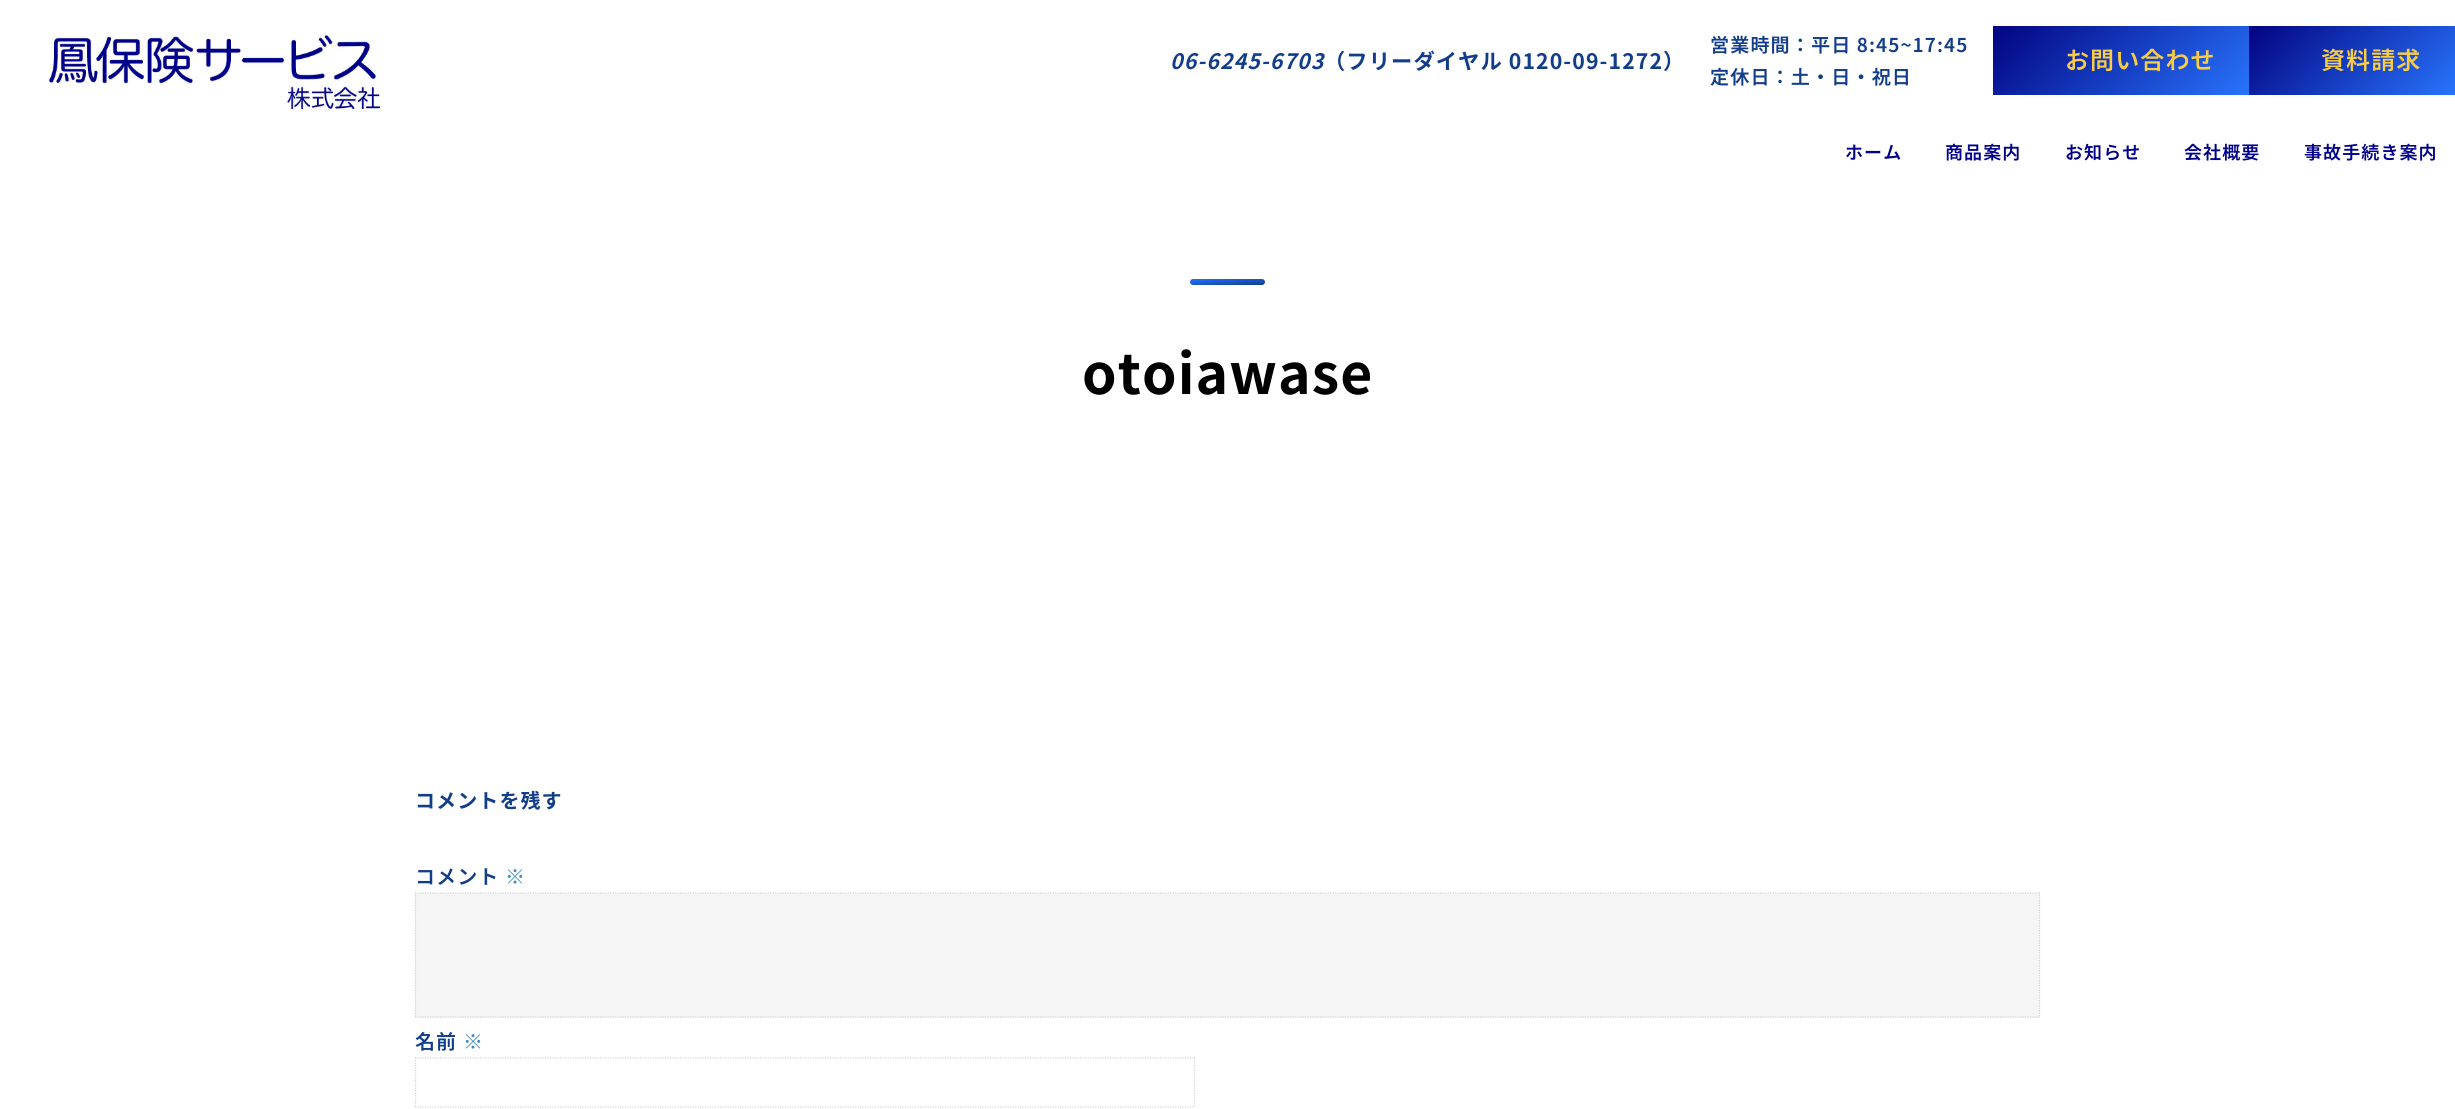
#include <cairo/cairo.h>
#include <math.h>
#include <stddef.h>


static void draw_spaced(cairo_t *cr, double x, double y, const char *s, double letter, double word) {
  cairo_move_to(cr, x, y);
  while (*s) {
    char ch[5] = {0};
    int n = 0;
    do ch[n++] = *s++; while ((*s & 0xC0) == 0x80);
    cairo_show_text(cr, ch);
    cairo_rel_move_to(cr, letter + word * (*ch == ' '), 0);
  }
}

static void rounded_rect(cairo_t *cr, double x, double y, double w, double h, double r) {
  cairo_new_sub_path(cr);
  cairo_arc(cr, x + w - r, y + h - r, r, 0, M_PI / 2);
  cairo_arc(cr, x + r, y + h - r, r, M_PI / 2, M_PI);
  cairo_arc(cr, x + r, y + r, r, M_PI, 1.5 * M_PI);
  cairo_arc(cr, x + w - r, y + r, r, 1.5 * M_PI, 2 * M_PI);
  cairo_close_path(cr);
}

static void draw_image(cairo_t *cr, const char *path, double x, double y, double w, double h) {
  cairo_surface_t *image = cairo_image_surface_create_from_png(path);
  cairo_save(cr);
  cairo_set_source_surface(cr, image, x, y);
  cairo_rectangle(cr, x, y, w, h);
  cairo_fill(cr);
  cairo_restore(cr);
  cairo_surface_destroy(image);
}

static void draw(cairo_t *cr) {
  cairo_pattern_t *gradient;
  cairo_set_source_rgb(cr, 1, 1, 1);
  cairo_paint(cr);
  draw_image(cr, "images/1.png", 48, 33, 334, 77);
  gradient = cairo_pattern_create_linear(2039, -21, 2202, 142);
  cairo_pattern_add_color_stop_rgba(gradient, 0, 2 / 255.0, 3 / 255.0, 129 / 255.0, 1);
  cairo_pattern_add_color_stop_rgba(gradient, 1, 40 / 255.0, 116 / 255.0, 252 / 255.0, 1);
  cairo_set_source(cr, gradient);
  cairo_pattern_destroy(gradient);
  cairo_rectangle(cr, 1993, 26, 256, 69);
  cairo_fill(cr);
  gradient = cairo_pattern_create_linear(2283, -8, 2421, 129);
  cairo_pattern_add_color_stop_rgba(gradient, 0, 2 / 255.0, 3 / 255.0, 129 / 255.0, 1);
  cairo_pattern_add_color_stop_rgba(gradient, 1, 40 / 255.0, 116 / 255.0, 252 / 255.0, 1);
  cairo_set_source(cr, gradient);
  cairo_pattern_destroy(gradient);
  cairo_rectangle(cr, 2249, 26, 206, 69);
  cairo_fill(cr);
  gradient = cairo_pattern_create_linear(1227, 276, 1228, 288);
  cairo_pattern_add_color_stop_rgba(gradient, 0, 33 / 255.0, 114 / 255.0, 1, 1);
  cairo_pattern_add_color_stop_rgba(gradient, 1, 18 / 255.0, 61 / 255.0, 138 / 255.0, 1);
  cairo_set_source(cr, gradient);
  cairo_pattern_destroy(gradient);
  rounded_rect(cr, 1190, 279, 75, 6, 3);
  cairo_fill(cr);
  cairo_set_source_rgb(cr, 245 / 255.0, 245 / 255.0, 245 / 255.0);
  cairo_rectangle(cr, 415, 893, 1625, 125);
  cairo_fill(cr);
  cairo_new_path(cr);
  cairo_move_to(cr, 415, 893);
  cairo_line_to(cr, 2040, 893);
  cairo_set_source_rgb(cr, 212 / 255.0, 212 / 255.0, 212 / 255.0);
  cairo_set_line_width(cr, 1.2);
  cairo_set_dash(cr, (double[]){1.25, 1.25}, 2, 0);
  cairo_stroke(cr);
  cairo_new_path(cr);
  cairo_move_to(cr, 2039.5, 892.5);
  cairo_line_to(cr, 2039.5, 1017.5);
  cairo_stroke(cr);
  cairo_new_path(cr);
  cairo_move_to(cr, 415, 1017);
  cairo_line_to(cr, 2040, 1017);
  cairo_stroke(cr);
  cairo_new_path(cr);
  cairo_move_to(cr, 415.5, 892.5);
  cairo_line_to(cr, 415.5, 1017.5);
  cairo_stroke(cr);
  cairo_new_path(cr);
  cairo_move_to(cr, 415, 1058);
  cairo_line_to(cr, 1195, 1058);
  cairo_stroke(cr);
  cairo_new_path(cr);
  cairo_move_to(cr, 1194.5, 1057.5);
  cairo_line_to(cr, 1194.5, 1107.5);
  cairo_stroke(cr);
  cairo_new_path(cr);
  cairo_move_to(cr, 415, 1107);
  cairo_line_to(cr, 1195, 1107);
  cairo_stroke(cr);
  cairo_new_path(cr);
  cairo_move_to(cr, 415.5, 1057.5);
  cairo_line_to(cr, 415.5, 1107.5);
  cairo_stroke(cr);
  cairo_select_font_face(cr, "Noto Sans JP", CAIRO_FONT_SLANT_ITALIC, CAIRO_FONT_WEIGHT_BOLD);
  cairo_set_font_size(cr, 21.25);
  cairo_set_source_rgb(cr, 18 / 255.0, 61 / 255.0, 138 / 255.0);
  draw_spaced(cr, 1170, 69, "06-6245-6703", 1.1, 0);
  cairo_select_font_face(cr, "Noto Sans JP", CAIRO_FONT_SLANT_NORMAL, CAIRO_FONT_WEIGHT_BOLD);
  draw_spaced(cr, 1324, 69, "（フリーダイヤル 0120-09-1272）", 1.1, 0);
  cairo_select_font_face(cr, "Noto Sans JP SemiBold", CAIRO_FONT_SLANT_NORMAL, CAIRO_FONT_WEIGHT_NORMAL);
  cairo_set_font_size(cr, 19.1);
  draw_spaced(cr, 1710, 52, "営業時間：平日 8:45~17:45", 1.1, 0);
  draw_spaced(cr, 1710, 84, "定休日：土・日・祝日", 1.1, 0);
  cairo_set_font_size(cr, 24);
  cairo_set_source_rgb(cr, 248 / 255.0, 204 / 255.0, 70 / 255.0);
  draw_spaced(cr, 2065, 69, "お問い合わせ", 1.1, 0);
  draw_spaced(cr, 2321, 69, "資料請求", 1.1, 0);
  cairo_set_font_size(cr, 18);
  cairo_set_source_rgb(cr, 0, 0, 139 / 255.0);
  draw_spaced(cr, 1845, 159, "ホーム", 1.1, 0);
  draw_spaced(cr, 1945, 159, "商品案内", 1.1, 0);
  draw_spaced(cr, 2065, 159, "お知らせ", 1.1, 0);
  draw_spaced(cr, 2184, 159, "会社概要", 1.1, 0);
  draw_spaced(cr, 2304, 159, "事故手続き案内", 1.1, 0);
  cairo_select_font_face(cr, "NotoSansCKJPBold", CAIRO_FONT_SLANT_NORMAL, CAIRO_FONT_WEIGHT_BOLD);
  cairo_set_font_size(cr, 55.25);
  cairo_set_source_rgb(cr, 0, 0, 0);
  draw_spaced(cr, 1082, 394, "otoiawase", 1.1, 0);
  cairo_select_font_face(cr, "Noto Sans JP", CAIRO_FONT_SLANT_NORMAL, CAIRO_FONT_WEIGHT_BOLD);
  cairo_set_font_size(cr, 20);
  cairo_set_source_rgb(cr, 18 / 255.0, 61 / 255.0, 138 / 255.0);
  draw_spaced(cr, 415, 808, "コメントを残す", 1.1, 0);
  cairo_select_font_face(cr, "Noto Sans JP SemiBold", CAIRO_FONT_SLANT_NORMAL, CAIRO_FONT_WEIGHT_NORMAL);
  draw_spaced(cr, 415, 884, "コメント", 1.1, 0);
  cairo_set_source_rgb(cr, 59 / 255.0, 141 / 255.0, 189 / 255.0);
  draw_spaced(cr, 505, 884, "※", 1.1, 0);
  cairo_set_source_rgb(cr, 18 / 255.0, 61 / 255.0, 138 / 255.0);
  draw_spaced(cr, 415, 1049, "名前", 1.1, 0);
  cairo_set_source_rgb(cr, 59 / 255.0, 141 / 255.0, 189 / 255.0);
  draw_spaced(cr, 463, 1049, "※", 1.1, 0);
}

int main(void) {
  cairo_surface_t *surface = cairo_image_surface_create(CAIRO_FORMAT_RGB24, 2455, 1109);
  cairo_t *cr = cairo_create(surface);
  cairo_font_options_t *options = cairo_font_options_create();
  cairo_font_options_set_hint_metrics(options, CAIRO_HINT_METRICS_OFF);
  cairo_font_options_set_hint_style(options, CAIRO_HINT_STYLE_NONE);
  cairo_set_font_options(cr, options);
  cairo_set_miter_limit(cr, 4);
  draw(cr);
  cairo_surface_write_to_png(surface, "out.png");
  cairo_font_options_destroy(options);
  cairo_destroy(cr);
  cairo_surface_destroy(surface);
  return 0;
}
